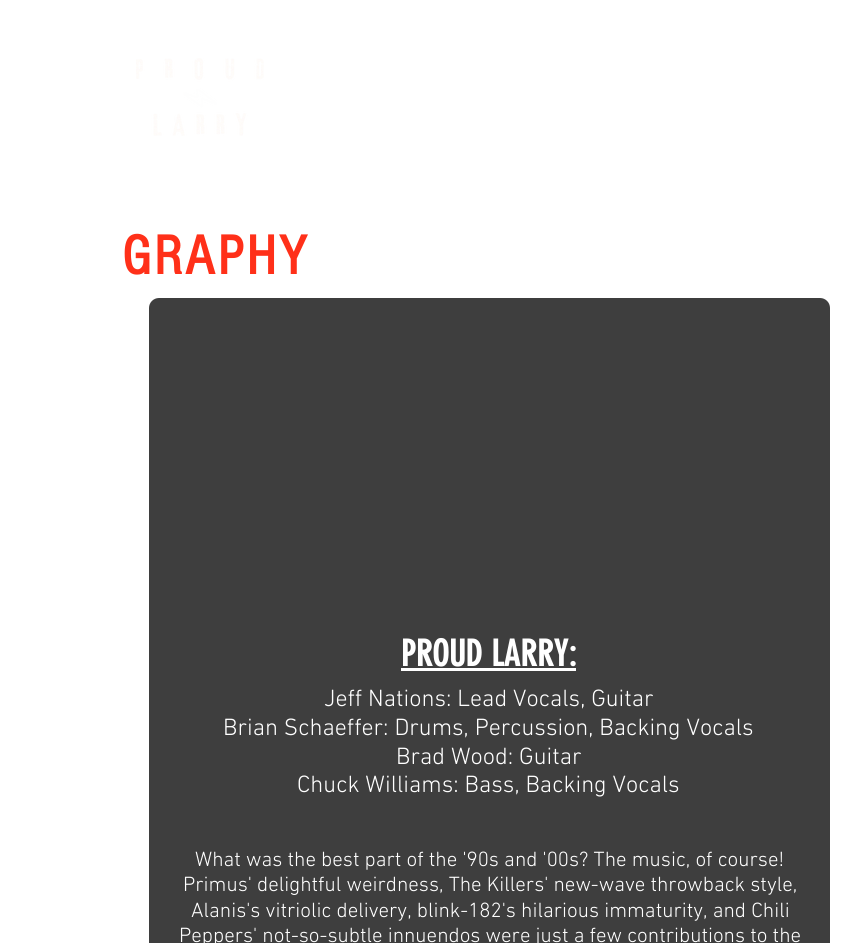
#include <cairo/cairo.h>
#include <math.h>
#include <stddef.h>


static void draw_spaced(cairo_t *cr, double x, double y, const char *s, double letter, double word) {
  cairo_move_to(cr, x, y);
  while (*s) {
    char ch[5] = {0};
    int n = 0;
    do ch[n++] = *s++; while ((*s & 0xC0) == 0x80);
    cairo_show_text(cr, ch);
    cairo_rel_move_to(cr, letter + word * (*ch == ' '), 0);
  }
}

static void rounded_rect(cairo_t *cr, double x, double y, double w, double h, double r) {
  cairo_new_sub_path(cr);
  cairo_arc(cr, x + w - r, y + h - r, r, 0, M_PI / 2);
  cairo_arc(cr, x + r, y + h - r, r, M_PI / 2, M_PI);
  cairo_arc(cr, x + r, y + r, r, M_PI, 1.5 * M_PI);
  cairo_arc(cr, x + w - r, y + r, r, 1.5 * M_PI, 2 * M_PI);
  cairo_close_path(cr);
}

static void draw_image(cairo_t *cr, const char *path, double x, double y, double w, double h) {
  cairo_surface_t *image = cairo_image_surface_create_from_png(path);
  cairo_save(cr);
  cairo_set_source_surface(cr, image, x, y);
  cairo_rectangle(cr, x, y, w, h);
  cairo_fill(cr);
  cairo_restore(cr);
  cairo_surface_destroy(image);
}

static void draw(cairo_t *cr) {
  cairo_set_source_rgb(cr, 1, 1, 1);
  cairo_paint(cr);
  draw_image(cr, "images/1.png", 136, 58, 128, 78);
  cairo_set_source_rgb(cr, 62 / 255.0, 62 / 255.0, 62 / 255.0);
  rounded_rect(cr, 149, 298, 681, 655, 10);
  cairo_fill(cr);
  cairo_set_source_rgb(cr, 1, 1, 1);
  cairo_rectangle(cr, 401, 668, 175, 3);
  cairo_fill(cr);
  cairo_select_font_face(cr, "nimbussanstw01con", CAIRO_FONT_SLANT_NORMAL, CAIRO_FONT_WEIGHT_BOLD);
  cairo_set_font_size(cr, 57);
  cairo_set_source_rgb(cr, 1, 48 / 255.0, 25 / 255.0);
  draw_spaced(cr, 122, 274, "GRAPHY", 3, 0);
  cairo_select_font_face(cr, "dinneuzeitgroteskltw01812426", CAIRO_FONT_SLANT_NORMAL, CAIRO_FONT_WEIGHT_BOLD);
  cairo_set_font_size(cr, 36);
  cairo_set_source_rgb(cr, 1, 1, 1);
  cairo_move_to(cr, 401, 666);
  cairo_show_text(cr, "PROUD LARRY:");
  cairo_select_font_face(cr, "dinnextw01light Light", CAIRO_FONT_SLANT_NORMAL, CAIRO_FONT_WEIGHT_NORMAL);
  cairo_set_font_size(cr, 24);
  cairo_move_to(cr, 324, 706);
  cairo_show_text(cr, "Jeff Nations: Lead Vocals, Guitar");
  cairo_move_to(cr, 223, 735);
  cairo_show_text(cr, "Brian Schaeffer: Drums, Percussion, Backing Vocals");
  cairo_move_to(cr, 396, 764);
  cairo_show_text(cr, "Brad Wood: Guitar");
  cairo_move_to(cr, 297, 792);
  cairo_show_text(cr, "Chuck Williams: Bass, Backing Vocals");
  cairo_set_font_size(cr, 21);
  cairo_move_to(cr, 195, 866);
  cairo_show_text(cr, "What was the best part of the '90s and '00s? The music, of course!");
  cairo_move_to(cr, 183, 891);
  cairo_show_text(cr, "Primus' delightful weirdness, The Killers' new-wave throwback style,");
  cairo_move_to(cr, 191, 917);
  cairo_show_text(cr, "Alanis's vitriolic delivery, blink-182's hilarious immaturity, and Chili");
  cairo_move_to(cr, 179, 942);
  cairo_show_text(cr, "Peppers' not-so-subtle innuendos were just a few contributions to the");
}

int main(void) {
  cairo_surface_t *surface = cairo_image_surface_create(CAIRO_FORMAT_RGB24, 866, 943);
  cairo_t *cr = cairo_create(surface);
  cairo_font_options_t *options = cairo_font_options_create();
  cairo_font_options_set_hint_metrics(options, CAIRO_HINT_METRICS_OFF);
  cairo_font_options_set_hint_style(options, CAIRO_HINT_STYLE_NONE);
  cairo_set_font_options(cr, options);
  cairo_set_miter_limit(cr, 4);
  draw(cr);
  cairo_surface_write_to_png(surface, "out.png");
  cairo_font_options_destroy(options);
  cairo_destroy(cr);
  cairo_surface_destroy(surface);
  return 0;
}
